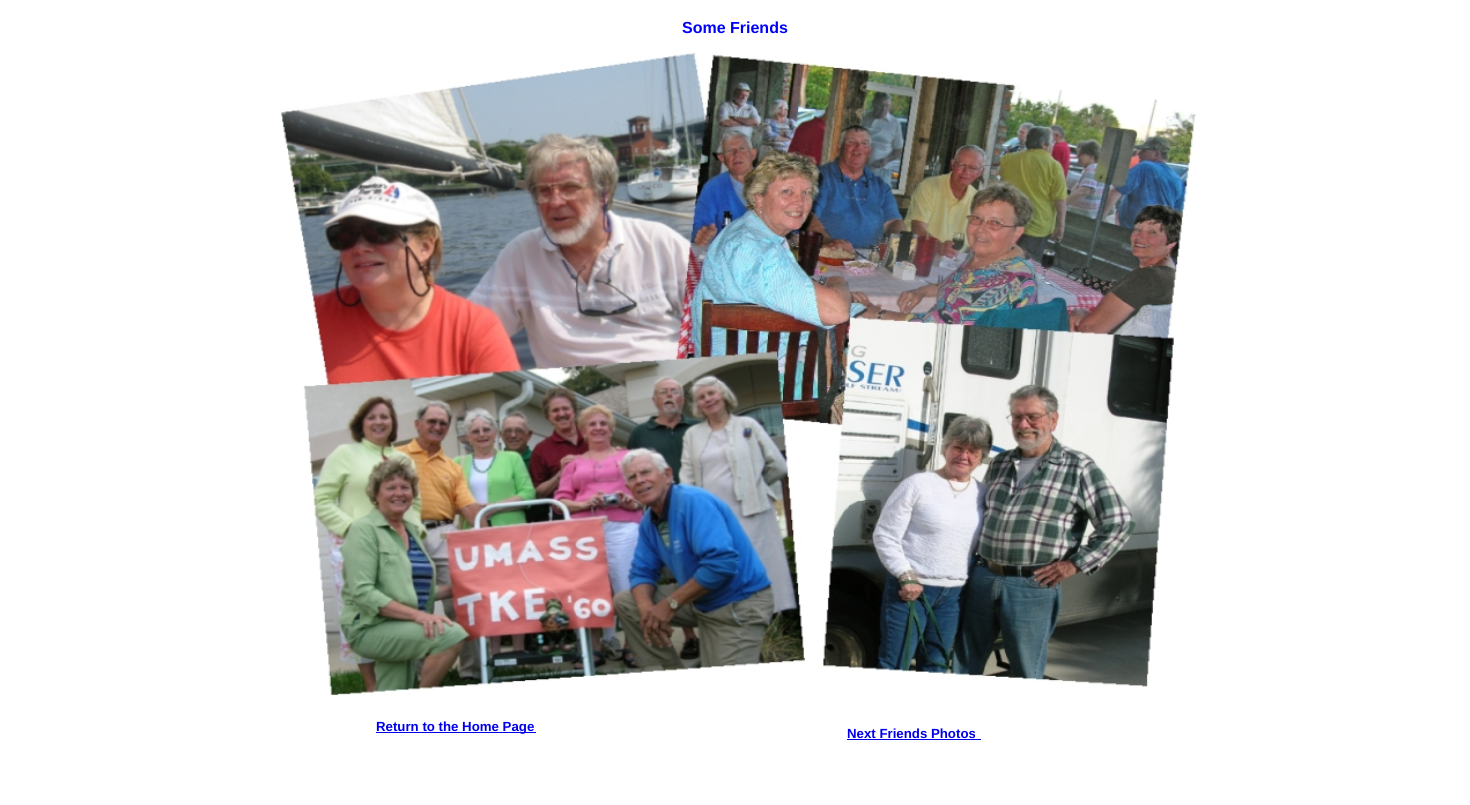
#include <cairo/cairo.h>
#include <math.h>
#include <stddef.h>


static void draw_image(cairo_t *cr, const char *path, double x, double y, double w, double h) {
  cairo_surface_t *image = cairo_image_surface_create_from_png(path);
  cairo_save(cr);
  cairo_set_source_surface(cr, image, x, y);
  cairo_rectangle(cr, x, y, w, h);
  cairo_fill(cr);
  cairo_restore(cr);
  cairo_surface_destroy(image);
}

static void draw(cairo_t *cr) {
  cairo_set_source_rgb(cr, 1, 1, 1);
  cairo_paint(cr);
  draw_image(cr, "images/1.png", 281, 53, 915, 643);
  cairo_set_source_rgb(cr, 0, 0, 238 / 255.0);
  cairo_rectangle(cr, 376, 732, 160, 1);
  cairo_fill(cr);
  cairo_rectangle(cr, 847, 739, 134, 1);
  cairo_fill(cr);
  cairo_select_font_face(cr, "Liberation Sans", CAIRO_FONT_SLANT_NORMAL, CAIRO_FONT_WEIGHT_BOLD);
  cairo_set_font_size(cr, 16);
  cairo_set_source_rgb(cr, 0, 0, 1);
  cairo_move_to(cr, 682, 33);
  cairo_show_text(cr, "Some Friends");
  cairo_set_font_size(cr, 13.25);
  cairo_set_source_rgb(cr, 0, 0, 238 / 255.0);
  cairo_move_to(cr, 376, 731);
  cairo_show_text(cr, "Return to the Home Page");
  cairo_move_to(cr, 847, 738);
  cairo_show_text(cr, "Next Friends Photos");
}

int main(void) {
  cairo_surface_t *surface = cairo_image_surface_create(CAIRO_FORMAT_RGB24, 1470, 805);
  cairo_t *cr = cairo_create(surface);
  cairo_font_options_t *options = cairo_font_options_create();
  cairo_font_options_set_hint_metrics(options, CAIRO_HINT_METRICS_OFF);
  cairo_font_options_set_hint_style(options, CAIRO_HINT_STYLE_NONE);
  cairo_set_font_options(cr, options);
  cairo_set_miter_limit(cr, 4);
  draw(cr);
  cairo_surface_write_to_png(surface, "out.png");
  cairo_font_options_destroy(options);
  cairo_destroy(cr);
  cairo_surface_destroy(surface);
  return 0;
}
